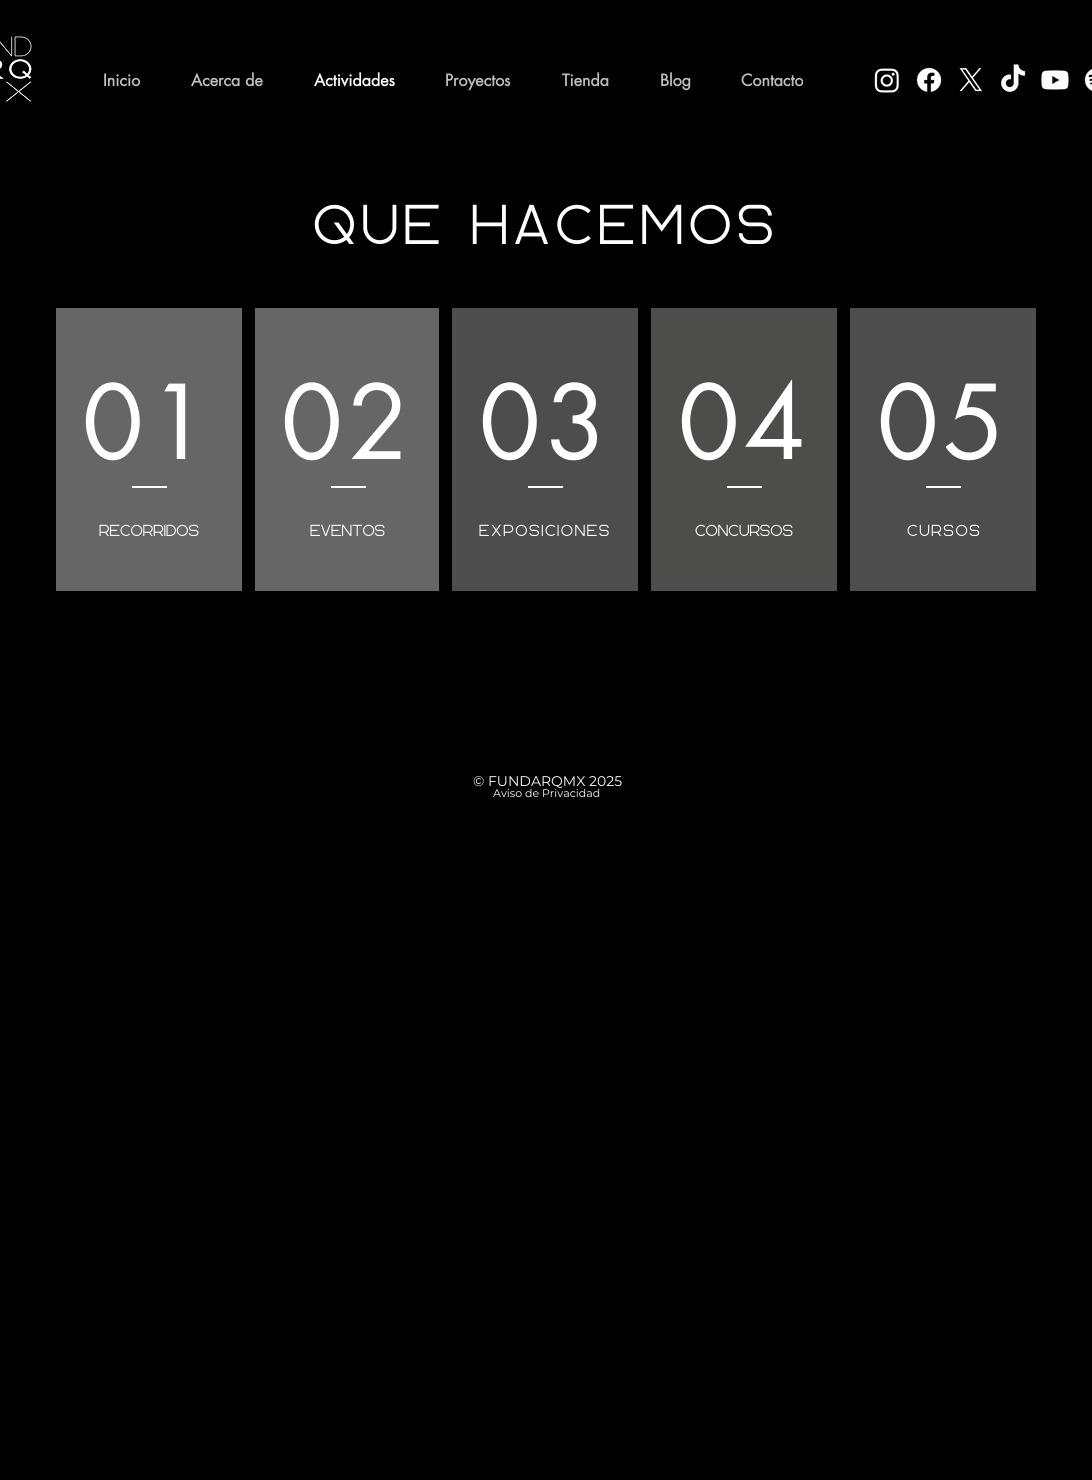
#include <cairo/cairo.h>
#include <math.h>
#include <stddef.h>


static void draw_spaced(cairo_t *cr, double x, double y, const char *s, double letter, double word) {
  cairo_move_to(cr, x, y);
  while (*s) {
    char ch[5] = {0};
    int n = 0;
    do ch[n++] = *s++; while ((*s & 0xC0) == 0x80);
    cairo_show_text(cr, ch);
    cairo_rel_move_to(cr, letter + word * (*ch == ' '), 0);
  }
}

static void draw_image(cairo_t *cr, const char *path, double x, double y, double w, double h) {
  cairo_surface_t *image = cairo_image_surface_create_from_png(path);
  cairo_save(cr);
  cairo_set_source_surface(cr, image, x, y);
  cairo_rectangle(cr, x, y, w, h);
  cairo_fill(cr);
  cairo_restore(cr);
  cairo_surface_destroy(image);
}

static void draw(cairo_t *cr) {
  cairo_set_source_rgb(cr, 0, 0, 0);
  cairo_paint(cr);
  draw_image(cr, "images/1.png", 0, 33, 32, 72);
  draw_image(cr, "images/2.png", 874, 68, 25, 25);
  draw_image(cr, "images/3.png", 916, 67, 26, 25);
  draw_image(cr, "images/4.png", 959, 67, 23, 25);
  draw_image(cr, "images/5.png", 1001, 64, 25, 28);
  draw_image(cr, "images/6.png", 1041, 70, 28, 20);
  draw_image(cr, "images/7.png", 1084, 69, 8, 22);
  cairo_set_source_rgb(cr, 102 / 255.0, 102 / 255.0, 102 / 255.0);
  cairo_rectangle(cr, 56, 308, 186, 283);
  cairo_fill(cr);
  cairo_set_source_rgb(cr, 1, 1, 1);
  cairo_rectangle(cr, 132, 486, 35, 2);
  cairo_fill(cr);
  cairo_set_source_rgb(cr, 102 / 255.0, 102 / 255.0, 102 / 255.0);
  cairo_rectangle(cr, 255, 308, 184, 283);
  cairo_fill(cr);
  cairo_set_source_rgb(cr, 1, 1, 1);
  cairo_rectangle(cr, 331, 486, 35, 2);
  cairo_fill(cr);
  cairo_set_source_rgb(cr, 77 / 255.0, 77 / 255.0, 77 / 255.0);
  cairo_rectangle(cr, 452, 308, 186, 283);
  cairo_fill(cr);
  cairo_set_source_rgb(cr, 1, 1, 1);
  cairo_rectangle(cr, 528, 486, 35, 2);
  cairo_fill(cr);
  cairo_set_source_rgb(cr, 77 / 255.0, 77 / 255.0, 76 / 255.0);
  cairo_rectangle(cr, 651, 308, 186, 283);
  cairo_fill(cr);
  cairo_set_source_rgb(cr, 1, 1, 1);
  cairo_rectangle(cr, 727, 486, 35, 2);
  cairo_fill(cr);
  cairo_set_source_rgb(cr, 77 / 255.0, 77 / 255.0, 77 / 255.0);
  cairo_rectangle(cr, 850, 308, 186, 283);
  cairo_fill(cr);
  cairo_set_source_rgb(cr, 1, 1, 1);
  cairo_rectangle(cr, 926, 486, 35, 2);
  cairo_fill(cr);
  cairo_select_font_face(cr, "futura", CAIRO_FONT_SLANT_NORMAL, CAIRO_FONT_WEIGHT_BOLD);
  cairo_set_font_size(cr, 16);
  cairo_set_source_rgb(cr, 191 / 255.0, 191 / 255.0, 191 / 255.0);
  cairo_move_to(cr, 103, 86);
  cairo_show_text(cr, "Inicio");
  cairo_move_to(cr, 191, 86);
  cairo_show_text(cr, "Acerca de");
  cairo_set_source_rgb(cr, 1, 1, 1);
  cairo_move_to(cr, 314, 86);
  cairo_show_text(cr, "Actividades");
  cairo_set_source_rgb(cr, 191 / 255.0, 191 / 255.0, 191 / 255.0);
  cairo_move_to(cr, 445, 86);
  cairo_show_text(cr, "Proyectos");
  cairo_move_to(cr, 562, 86);
  cairo_show_text(cr, "Tienda");
  cairo_move_to(cr, 660, 86);
  cairo_show_text(cr, "Blog");
  cairo_move_to(cr, 741, 86);
  cairo_show_text(cr, "Contacto");
  cairo_select_font_face(cr, "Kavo", CAIRO_FONT_SLANT_NORMAL, CAIRO_FONT_WEIGHT_NORMAL);
  cairo_set_font_size(cr, 56);
  cairo_set_source_rgb(cr, 1, 1, 1);
  draw_spaced(cr, 313, 244, "Qué hacemos", 5.6, 0);
  cairo_select_font_face(cr, "futura", CAIRO_FONT_SLANT_NORMAL, CAIRO_FONT_WEIGHT_NORMAL);
  cairo_set_font_size(cr, 100);
  draw_spaced(cr, 82, 459, "01", 5, 0);
  cairo_select_font_face(cr, "Kavo", CAIRO_FONT_SLANT_NORMAL, CAIRO_FONT_WEIGHT_NORMAL);
  cairo_set_font_size(cr, 16);
  cairo_move_to(cr, 99, 536);
  cairo_show_text(cr, "recorridos");
  cairo_select_font_face(cr, "futura", CAIRO_FONT_SLANT_NORMAL, CAIRO_FONT_WEIGHT_NORMAL);
  cairo_set_font_size(cr, 100);
  draw_spaced(cr, 281, 459, "02", 5, 0);
  cairo_select_font_face(cr, "Kavo", CAIRO_FONT_SLANT_NORMAL, CAIRO_FONT_WEIGHT_NORMAL);
  cairo_set_font_size(cr, 16);
  cairo_move_to(cr, 310, 536);
  cairo_show_text(cr, "eventos");
  cairo_select_font_face(cr, "futura", CAIRO_FONT_SLANT_NORMAL, CAIRO_FONT_WEIGHT_NORMAL);
  cairo_set_font_size(cr, 100);
  draw_spaced(cr, 479, 459, "03", 5, 0);
  cairo_select_font_face(cr, "Kavo", CAIRO_FONT_SLANT_NORMAL, CAIRO_FONT_WEIGHT_NORMAL);
  cairo_set_font_size(cr, 16);
  draw_spaced(cr, 479, 536, "exposiciones", 1.6, 0);
  cairo_select_font_face(cr, "futura", CAIRO_FONT_SLANT_NORMAL, CAIRO_FONT_WEIGHT_NORMAL);
  cairo_set_font_size(cr, 100);
  draw_spaced(cr, 678, 459, "04", 5, 0);
  cairo_select_font_face(cr, "Kavo", CAIRO_FONT_SLANT_NORMAL, CAIRO_FONT_WEIGHT_NORMAL);
  cairo_set_font_size(cr, 16);
  cairo_move_to(cr, 695, 536);
  cairo_show_text(cr, "concursos");
  cairo_select_font_face(cr, "futura", CAIRO_FONT_SLANT_NORMAL, CAIRO_FONT_WEIGHT_NORMAL);
  cairo_set_font_size(cr, 100);
  draw_spaced(cr, 877, 459, "05", 5, 0);
  cairo_select_font_face(cr, "Kavo", CAIRO_FONT_SLANT_NORMAL, CAIRO_FONT_WEIGHT_NORMAL);
  cairo_set_font_size(cr, 16);
  draw_spaced(cr, 907, 536, "cursos", 1.6, 0);
  cairo_select_font_face(cr, "Montserrat", CAIRO_FONT_SLANT_NORMAL, CAIRO_FONT_WEIGHT_NORMAL);
  cairo_set_font_size(cr, 14);
  cairo_move_to(cr, 473, 786);
  cairo_show_text(cr, "© FUNDARQMX 2025");
  cairo_set_font_size(cr, 11);
  cairo_move_to(cr, 493, 797);
  cairo_show_text(cr, "Aviso de Privacidad");
}

int main(void) {
  cairo_surface_t *surface = cairo_image_surface_create(CAIRO_FORMAT_RGB24, 1092, 1480);
  cairo_t *cr = cairo_create(surface);
  cairo_font_options_t *options = cairo_font_options_create();
  cairo_font_options_set_hint_metrics(options, CAIRO_HINT_METRICS_OFF);
  cairo_font_options_set_hint_style(options, CAIRO_HINT_STYLE_NONE);
  cairo_set_font_options(cr, options);
  cairo_set_miter_limit(cr, 4);
  draw(cr);
  cairo_surface_write_to_png(surface, "out.png");
  cairo_font_options_destroy(options);
  cairo_destroy(cr);
  cairo_surface_destroy(surface);
  return 0;
}
